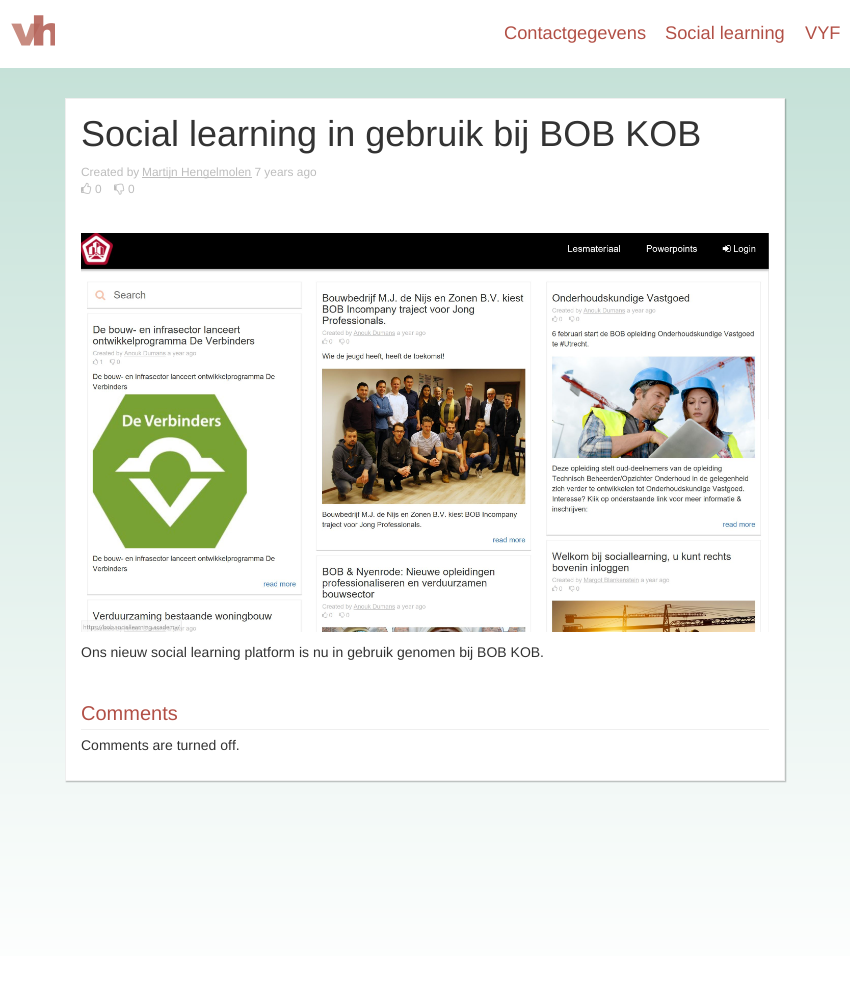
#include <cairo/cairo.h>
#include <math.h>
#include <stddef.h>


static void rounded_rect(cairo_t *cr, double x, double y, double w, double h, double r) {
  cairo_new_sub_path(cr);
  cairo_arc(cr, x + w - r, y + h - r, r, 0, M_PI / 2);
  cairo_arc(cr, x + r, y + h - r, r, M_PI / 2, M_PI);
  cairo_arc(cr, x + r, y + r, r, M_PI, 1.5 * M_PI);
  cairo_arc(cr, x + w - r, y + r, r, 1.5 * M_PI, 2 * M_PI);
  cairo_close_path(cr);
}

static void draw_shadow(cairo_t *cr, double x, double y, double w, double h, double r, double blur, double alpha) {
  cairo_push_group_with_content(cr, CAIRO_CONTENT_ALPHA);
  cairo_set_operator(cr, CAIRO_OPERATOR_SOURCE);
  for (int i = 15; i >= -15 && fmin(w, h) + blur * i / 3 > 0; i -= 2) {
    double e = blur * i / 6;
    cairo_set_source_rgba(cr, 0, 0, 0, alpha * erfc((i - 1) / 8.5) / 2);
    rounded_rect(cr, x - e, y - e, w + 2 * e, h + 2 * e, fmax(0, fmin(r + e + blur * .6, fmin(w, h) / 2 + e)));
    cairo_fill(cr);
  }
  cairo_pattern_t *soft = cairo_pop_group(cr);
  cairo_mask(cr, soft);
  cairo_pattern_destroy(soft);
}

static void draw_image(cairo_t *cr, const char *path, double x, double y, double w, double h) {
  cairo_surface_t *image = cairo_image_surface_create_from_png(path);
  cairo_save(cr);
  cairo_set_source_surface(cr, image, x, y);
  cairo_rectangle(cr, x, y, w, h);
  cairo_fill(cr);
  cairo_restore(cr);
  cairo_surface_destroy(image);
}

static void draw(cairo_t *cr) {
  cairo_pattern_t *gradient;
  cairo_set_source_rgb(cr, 1, 1, 1);
  cairo_paint(cr);
  gradient = cairo_pattern_create_linear(425, 0, 425, 996);
  cairo_pattern_add_color_stop_rgba(gradient, 0, 193 / 255.0, 223 / 255.0, 213 / 255.0, 1);
  cairo_pattern_add_color_stop_rgba(gradient, 1, 1, 1, 1, 1);
  cairo_set_source(cr, gradient);
  cairo_pattern_destroy(gradient);
  cairo_rectangle(cr, 0, 68, 850, 888);
  cairo_fill(cr);
  draw_image(cr, "images/1.png", 11, 15, 44, 31);
  cairo_set_source_rgb(cr, 0, 0, 0);
  draw_shadow(cr, 66, 99, 720, 683, 0, 0.5, 0.25);
  cairo_set_source_rgb(cr, 1, 1, 1);
  cairo_rectangle(cr, 65.5, 98.5, 719, 682);
  cairo_fill_preserve(cr);
  cairo_set_source_rgb(cr, 239 / 255.0, 239 / 255.0, 239 / 255.0);
  cairo_set_line_width(cr, 1);
  cairo_stroke(cr);
  cairo_set_source_rgb(cr, 189 / 255.0, 189 / 255.0, 189 / 255.0);
  cairo_rectangle(cr, 142, 177, 110, 1);
  cairo_fill(cr);
  draw_image(cr, "images/2.png", 81, 182, 11, 12);
  draw_image(cr, "images/3.png", 114, 183, 11, 12);
  draw_image(cr, "images/4.png", 81, 233, 688, 399);
  cairo_set_source_rgb(cr, 239 / 255.0, 239 / 255.0, 239 / 255.0);
  cairo_rectangle(cr, 81, 729, 688, 1);
  cairo_fill(cr);
  cairo_select_font_face(cr, "Liberation Sans", CAIRO_FONT_SLANT_NORMAL, CAIRO_FONT_WEIGHT_NORMAL);
  cairo_set_font_size(cr, 18.25);
  cairo_set_source_rgb(cr, 178 / 255.0, 80 / 255.0, 70 / 255.0);
  cairo_move_to(cr, 504, 39);
  cairo_show_text(cr, "Contactgegevens");
  cairo_move_to(cr, 665, 39);
  cairo_show_text(cr, "Social learning");
  cairo_move_to(cr, 805, 39);
  cairo_show_text(cr, "VYF");
  cairo_set_font_size(cr, 36);
  cairo_set_source_rgb(cr, 51 / 255.0, 51 / 255.0, 51 / 255.0);
  cairo_move_to(cr, 81, 146);
  cairo_show_text(cr, "Social learning in gebruik bij BOB KOB");
  cairo_set_font_size(cr, 11.9);
  cairo_set_source_rgb(cr, 189 / 255.0, 189 / 255.0, 189 / 255.0);
  cairo_move_to(cr, 81, 176);
  cairo_show_text(cr, "Created by");
  cairo_move_to(cr, 142, 176);
  cairo_show_text(cr, "Martijn Hengelmolen 7 years ago");
  cairo_move_to(cr, 95, 193);
  cairo_show_text(cr, "0");
  cairo_move_to(cr, 128, 193);
  cairo_show_text(cr, "0");
  cairo_set_font_size(cr, 14);
  cairo_set_source_rgb(cr, 51 / 255.0, 51 / 255.0, 51 / 255.0);
  cairo_move_to(cr, 81, 657);
  cairo_show_text(cr, "Ons nieuw social learning platform is nu in gebruik genomen bij BOB KOB.");
  cairo_set_font_size(cr, 20);
  cairo_set_source_rgb(cr, 178 / 255.0, 80 / 255.0, 70 / 255.0);
  cairo_move_to(cr, 81, 720);
  cairo_show_text(cr, "Comments");
  cairo_set_font_size(cr, 14);
  cairo_set_source_rgb(cr, 51 / 255.0, 51 / 255.0, 51 / 255.0);
  cairo_move_to(cr, 81, 750);
  cairo_show_text(cr, "Comments are turned off.");
}

int main(void) {
  cairo_surface_t *surface = cairo_image_surface_create(CAIRO_FORMAT_RGB24, 850, 996);
  cairo_t *cr = cairo_create(surface);
  cairo_font_options_t *options = cairo_font_options_create();
  cairo_font_options_set_hint_metrics(options, CAIRO_HINT_METRICS_OFF);
  cairo_font_options_set_hint_style(options, CAIRO_HINT_STYLE_NONE);
  cairo_set_font_options(cr, options);
  cairo_set_miter_limit(cr, 4);
  draw(cr);
  cairo_surface_write_to_png(surface, "out.png");
  cairo_font_options_destroy(options);
  cairo_destroy(cr);
  cairo_surface_destroy(surface);
  return 0;
}
